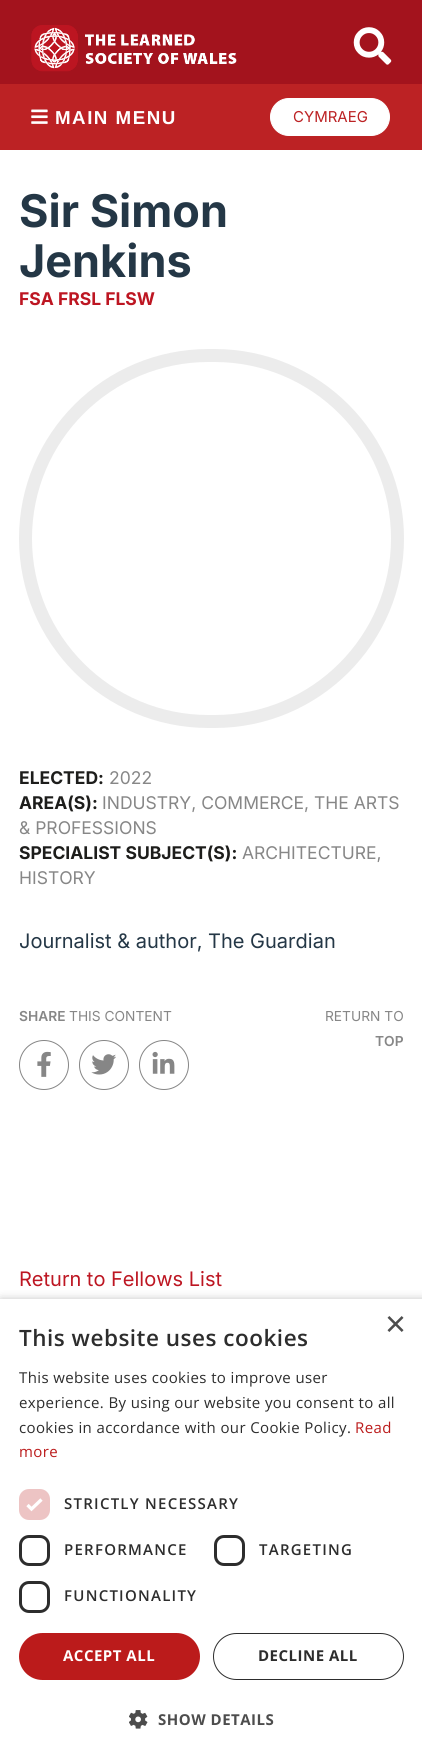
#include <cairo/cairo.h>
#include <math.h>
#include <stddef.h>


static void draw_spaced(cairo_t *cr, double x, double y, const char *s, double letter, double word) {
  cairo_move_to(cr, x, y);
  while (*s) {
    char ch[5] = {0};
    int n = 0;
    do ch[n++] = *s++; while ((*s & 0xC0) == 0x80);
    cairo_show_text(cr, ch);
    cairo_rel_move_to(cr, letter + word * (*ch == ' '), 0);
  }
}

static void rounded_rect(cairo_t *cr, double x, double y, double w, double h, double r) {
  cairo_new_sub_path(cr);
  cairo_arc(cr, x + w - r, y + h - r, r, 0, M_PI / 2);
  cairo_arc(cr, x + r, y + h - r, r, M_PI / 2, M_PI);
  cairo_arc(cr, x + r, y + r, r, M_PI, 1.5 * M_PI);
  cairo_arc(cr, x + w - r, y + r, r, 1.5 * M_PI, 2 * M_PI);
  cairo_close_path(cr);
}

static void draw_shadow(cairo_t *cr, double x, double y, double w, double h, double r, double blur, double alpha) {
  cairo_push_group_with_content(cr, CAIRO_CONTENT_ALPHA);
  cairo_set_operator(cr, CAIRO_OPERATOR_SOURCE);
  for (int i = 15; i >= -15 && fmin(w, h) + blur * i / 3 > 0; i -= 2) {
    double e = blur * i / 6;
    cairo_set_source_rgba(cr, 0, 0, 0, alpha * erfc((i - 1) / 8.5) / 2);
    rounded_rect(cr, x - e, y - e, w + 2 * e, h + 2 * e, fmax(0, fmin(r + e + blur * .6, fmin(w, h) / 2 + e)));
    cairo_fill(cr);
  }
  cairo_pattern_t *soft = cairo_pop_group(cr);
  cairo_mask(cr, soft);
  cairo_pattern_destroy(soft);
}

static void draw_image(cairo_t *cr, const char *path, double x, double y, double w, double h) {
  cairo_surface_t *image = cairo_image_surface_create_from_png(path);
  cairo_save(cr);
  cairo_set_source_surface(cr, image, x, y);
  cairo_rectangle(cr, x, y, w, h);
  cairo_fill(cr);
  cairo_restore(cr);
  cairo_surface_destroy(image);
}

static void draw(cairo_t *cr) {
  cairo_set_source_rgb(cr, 1, 1, 1);
  cairo_paint(cr);
  cairo_set_source_rgb(cr, 163 / 255.0, 19 / 255.0, 29 / 255.0);
  cairo_rectangle(cr, 0, 0, 422, 84);
  cairo_fill(cr);
  draw_image(cr, "images/1.png", 31, 25, 206, 47);
  draw_image(cr, "images/2.png", 353, 27, 39, 38);
  cairo_set_source_rgb(cr, 188 / 255.0, 34 / 255.0, 36 / 255.0);
  cairo_rectangle(cr, 0, 84, 422, 66);
  cairo_fill(cr);
  draw_image(cr, "images/3.png", 31, 109, 17, 15);
  cairo_set_source_rgb(cr, 1, 1, 1);
  rounded_rect(cr, 270.5, 98.5, 119, 37, 18.5);
  cairo_fill_preserve(cr);
  cairo_set_line_width(cr, 1);
  cairo_stroke(cr);
  rounded_rect(cr, 25.5, 355.5, 372, 366, 183);
  cairo_set_source_rgb(cr, 236 / 255.0, 236 / 255.0, 236 / 255.0);
  cairo_set_line_width(cr, 13);
  cairo_stroke(cr);
  cairo_arc(cr, 44, 1065, 24.5, 0, 2 * M_PI);
  cairo_set_source_rgb(cr, 134 / 255.0, 134 / 255.0, 134 / 255.0);
  cairo_set_line_width(cr, 1);
  cairo_stroke(cr);
  draw_image(cr, "images/4.png", 37, 1051, 14, 26);
  cairo_arc(cr, 104, 1065, 24.5, 0, 2 * M_PI);
  cairo_stroke(cr);
  draw_image(cr, "images/5.png", 91, 1054, 25, 21);
  cairo_arc(cr, 164, 1065, 24.5, 0, 2 * M_PI);
  cairo_stroke(cr);
  draw_image(cr, "images/6.png", 152, 1051, 23, 23);
  cairo_set_source_rgb(cr, 0, 0, 0);
  draw_shadow(cr, 1, 1301, 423, 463, 0, 5, 0.35);
  cairo_set_source_rgb(cr, 1, 1, 1);
  cairo_rectangle(cr, 0, 1299, 422, 462);
  cairo_fill(cr);
  cairo_set_source_rgb(cr, 237 / 255.0, 196 / 255.0, 196 / 255.0);
  rounded_rect(cr, 19, 1489, 31, 31, 10);
  cairo_fill(cr);
  cairo_new_path(cr);
  cairo_move_to(cr, 27.5, 1505);
  cairo_line_to(cr, 31.5, 1509);
  cairo_line_to(cr, 41.5, 1499.5);
  cairo_set_source_rgb(cr, 1, 1, 1);
  cairo_set_line_width(cr, 3.3);
  cairo_stroke(cr);
  rounded_rect(cr, 20.5, 1536.5, 28, 28, 8.5);
  cairo_set_source_rgb(cr, 45 / 255.0, 45 / 255.0, 45 / 255.0);
  cairo_set_line_width(cr, 3);
  cairo_stroke(cr);
  rounded_rect(cr, 215.5, 1536.5, 28, 28, 8.5);
  cairo_stroke(cr);
  rounded_rect(cr, 20.5, 1582.5, 28, 29, 8.5);
  cairo_stroke(cr);
  cairo_set_source_rgb(cr, 187 / 255.0, 27 / 255.0, 27 / 255.0);
  rounded_rect(cr, 19, 1633, 181, 47, 23.5);
  cairo_fill(cr);
  rounded_rect(cr, 213.5, 1633.5, 190, 46, 23);
  cairo_set_source_rgb(cr, 45 / 255.0, 45 / 255.0, 45 / 255.0);
  cairo_set_line_width(cr, 1);
  cairo_stroke(cr);
  draw_image(cr, "images/7.png", 129, 1710, 19, 19);
  cairo_select_font_face(cr, "Liberation Sans", CAIRO_FONT_SLANT_NORMAL, CAIRO_FONT_WEIGHT_BOLD);
  cairo_set_font_size(cr, 18.75);
  cairo_set_source_rgb(cr, 1, 1, 1);
  draw_spaced(cr, 55, 124, "MAIN MENU", 1.5, 0);
  cairo_select_font_face(cr, "Inter", CAIRO_FONT_SLANT_NORMAL, CAIRO_FONT_WEIGHT_NORMAL);
  cairo_set_font_size(cr, 15);
  cairo_set_source_rgb(cr, 188 / 255.0, 34 / 255.0, 36 / 255.0);
  cairo_move_to(cr, 293, 122);
  cairo_show_text(cr, "CYMRAEG");
  cairo_select_font_face(cr, "Inter", CAIRO_FONT_SLANT_NORMAL, CAIRO_FONT_WEIGHT_BOLD);
  cairo_set_font_size(cr, 45);
  cairo_set_source_rgb(cr, 36 / 255.0, 55 / 255.0, 70 / 255.0);
  cairo_move_to(cr, 19, 227);
  cairo_show_text(cr, "Sir Simon");
  cairo_move_to(cr, 19, 277);
  cairo_show_text(cr, "Jenkins");
  cairo_set_font_size(cr, 17.5);
  cairo_set_source_rgb(cr, 189 / 255.0, 22 / 255.0, 34 / 255.0);
  cairo_move_to(cr, 19, 305);
  cairo_show_text(cr, "FSA FRSL FLSW");
  cairo_set_source_rgb(cr, 29 / 255.0, 29 / 255.0, 27 / 255.0);
  cairo_move_to(cr, 19, 784);
  cairo_show_text(cr, "ELECTED:");
  cairo_select_font_face(cr, "Inter", CAIRO_FONT_SLANT_NORMAL, CAIRO_FONT_WEIGHT_NORMAL);
  cairo_set_source_rgb(cr, 135 / 255.0, 135 / 255.0, 135 / 255.0);
  cairo_move_to(cr, 109, 784);
  cairo_show_text(cr, "2022");
  cairo_select_font_face(cr, "Inter", CAIRO_FONT_SLANT_NORMAL, CAIRO_FONT_WEIGHT_BOLD);
  cairo_set_source_rgb(cr, 29 / 255.0, 29 / 255.0, 27 / 255.0);
  cairo_move_to(cr, 19, 809);
  cairo_show_text(cr, "AREA(S):");
  cairo_select_font_face(cr, "Inter", CAIRO_FONT_SLANT_NORMAL, CAIRO_FONT_WEIGHT_NORMAL);
  cairo_set_source_rgb(cr, 135 / 255.0, 135 / 255.0, 135 / 255.0);
  cairo_move_to(cr, 102, 809);
  cairo_show_text(cr, "INDUSTRY, COMMERCE, THE ARTS");
  cairo_move_to(cr, 19, 834);
  cairo_show_text(cr, "& PROFESSIONS");
  cairo_select_font_face(cr, "Inter", CAIRO_FONT_SLANT_NORMAL, CAIRO_FONT_WEIGHT_BOLD);
  cairo_set_source_rgb(cr, 29 / 255.0, 29 / 255.0, 27 / 255.0);
  cairo_move_to(cr, 19, 859);
  cairo_show_text(cr, "SPECIALIST SUBJECT(S):");
  cairo_select_font_face(cr, "Inter", CAIRO_FONT_SLANT_NORMAL, CAIRO_FONT_WEIGHT_NORMAL);
  cairo_set_source_rgb(cr, 135 / 255.0, 135 / 255.0, 135 / 255.0);
  cairo_move_to(cr, 242, 859);
  cairo_show_text(cr, "ARCHITECTURE,");
  cairo_move_to(cr, 19, 884);
  cairo_show_text(cr, "HISTORY");
  cairo_set_font_size(cr, 20);
  cairo_set_source_rgb(cr, 36 / 255.0, 55 / 255.0, 70 / 255.0);
  cairo_move_to(cr, 19, 948);
  cairo_show_text(cr, "Journalist & author, The Guardian");
  cairo_select_font_face(cr, "Inter SemiBold", CAIRO_FONT_SLANT_NORMAL, CAIRO_FONT_WEIGHT_NORMAL);
  cairo_set_font_size(cr, 13.75);
  cairo_set_source_rgb(cr, 135 / 255.0, 135 / 255.0, 135 / 255.0);
  cairo_move_to(cr, 19, 1021);
  cairo_show_text(cr, "SHARE");
  cairo_select_font_face(cr, "Inter", CAIRO_FONT_SLANT_NORMAL, CAIRO_FONT_WEIGHT_NORMAL);
  cairo_move_to(cr, 69, 1021);
  cairo_show_text(cr, "THIS CONTENT");
  cairo_move_to(cr, 325, 1021);
  cairo_show_text(cr, "RETURN TO");
  cairo_select_font_face(cr, "Inter SemiBold", CAIRO_FONT_SLANT_NORMAL, CAIRO_FONT_WEIGHT_NORMAL);
  cairo_move_to(cr, 375, 1046);
  cairo_show_text(cr, "TOP");
  cairo_select_font_face(cr, "Inter", CAIRO_FONT_SLANT_NORMAL, CAIRO_FONT_WEIGHT_NORMAL);
  cairo_set_font_size(cr, 20);
  cairo_set_source_rgb(cr, 189 / 255.0, 22 / 255.0, 34 / 255.0);
  cairo_move_to(cr, 19, 1286);
  cairo_show_text(cr, "Return to Fellows List");
  cairo_select_font_face(cr, "Liberation Sans", CAIRO_FONT_SLANT_NORMAL, CAIRO_FONT_WEIGHT_NORMAL);
  cairo_set_font_size(cr, 36);
  cairo_set_source_rgb(cr, 77 / 255.0, 77 / 255.0, 77 / 255.0);
  cairo_move_to(cr, 385, 1336);
  cairo_show_text(cr, "×");
  cairo_select_font_face(cr, "Open Sans SemiBold", CAIRO_FONT_SLANT_NORMAL, CAIRO_FONT_WEIGHT_NORMAL);
  cairo_set_font_size(cr, 22.5);
  cairo_set_source_rgb(cr, 45 / 255.0, 45 / 255.0, 45 / 255.0);
  draw_spaced(cr, 19, 1346, "This website uses cookies", 0.5, 0);
  cairo_select_font_face(cr, "Open Sans", CAIRO_FONT_SLANT_NORMAL, CAIRO_FONT_WEIGHT_NORMAL);
  cairo_set_font_size(cr, 15);
  draw_spaced(cr, 19, 1383, "This website uses cookies to improve user", 0.38, 0);
  draw_spaced(cr, 19, 1408, "experience. By using our website you consent to all", 0.38, 0);
  draw_spaced(cr, 19, 1433, "cookies in accordance with our Cookie Policy.", 0.38, 0);
  cairo_set_source_rgb(cr, 187 / 255.0, 27 / 255.0, 27 / 255.0);
  draw_spaced(cr, 355, 1433, "Read", 0.38, 0);
  draw_spaced(cr, 19, 1457, "more", 0.38, 0);
  cairo_select_font_face(cr, "Open Sans SemiBold", CAIRO_FONT_SLANT_NORMAL, CAIRO_FONT_WEIGHT_NORMAL);
  cairo_set_source_rgb(cr, 45 / 255.0, 45 / 255.0, 45 / 255.0);
  draw_spaced(cr, 64, 1509, "STRICTLY NECESSARY", 1.25, 0);
  draw_spaced(cr, 64, 1555, "PERFORMANCE", 1.25, 0);
  draw_spaced(cr, 259, 1555, "TARGETING", 1.25, 0);
  draw_spaced(cr, 64, 1601, "FUNCTIONALITY", 1.25, 0);
  cairo_select_font_face(cr, "Open Sans", CAIRO_FONT_SLANT_NORMAL, CAIRO_FONT_WEIGHT_BOLD);
  cairo_set_source_rgb(cr, 1, 1, 1);
  draw_spaced(cr, 63, 1661, "ACCEPT ALL", 0.5, 0);
  cairo_set_source_rgb(cr, 45 / 255.0, 45 / 255.0, 45 / 255.0);
  draw_spaced(cr, 258, 1661, "DECLINE ALL", 0.5, 0);
  cairo_set_source_rgb(cr, 77 / 255.0, 77 / 255.0, 77 / 255.0);
  draw_spaced(cr, 158, 1725, "SHOW DETAILS", 0.5, 0);
}

int main(void) {
  cairo_surface_t *surface = cairo_image_surface_create(CAIRO_FORMAT_RGB24, 422, 1761);
  cairo_t *cr = cairo_create(surface);
  cairo_font_options_t *options = cairo_font_options_create();
  cairo_font_options_set_hint_metrics(options, CAIRO_HINT_METRICS_OFF);
  cairo_font_options_set_hint_style(options, CAIRO_HINT_STYLE_NONE);
  cairo_set_font_options(cr, options);
  cairo_set_miter_limit(cr, 4);
  draw(cr);
  cairo_surface_write_to_png(surface, "out.png");
  cairo_font_options_destroy(options);
  cairo_destroy(cr);
  cairo_surface_destroy(surface);
  return 0;
}
